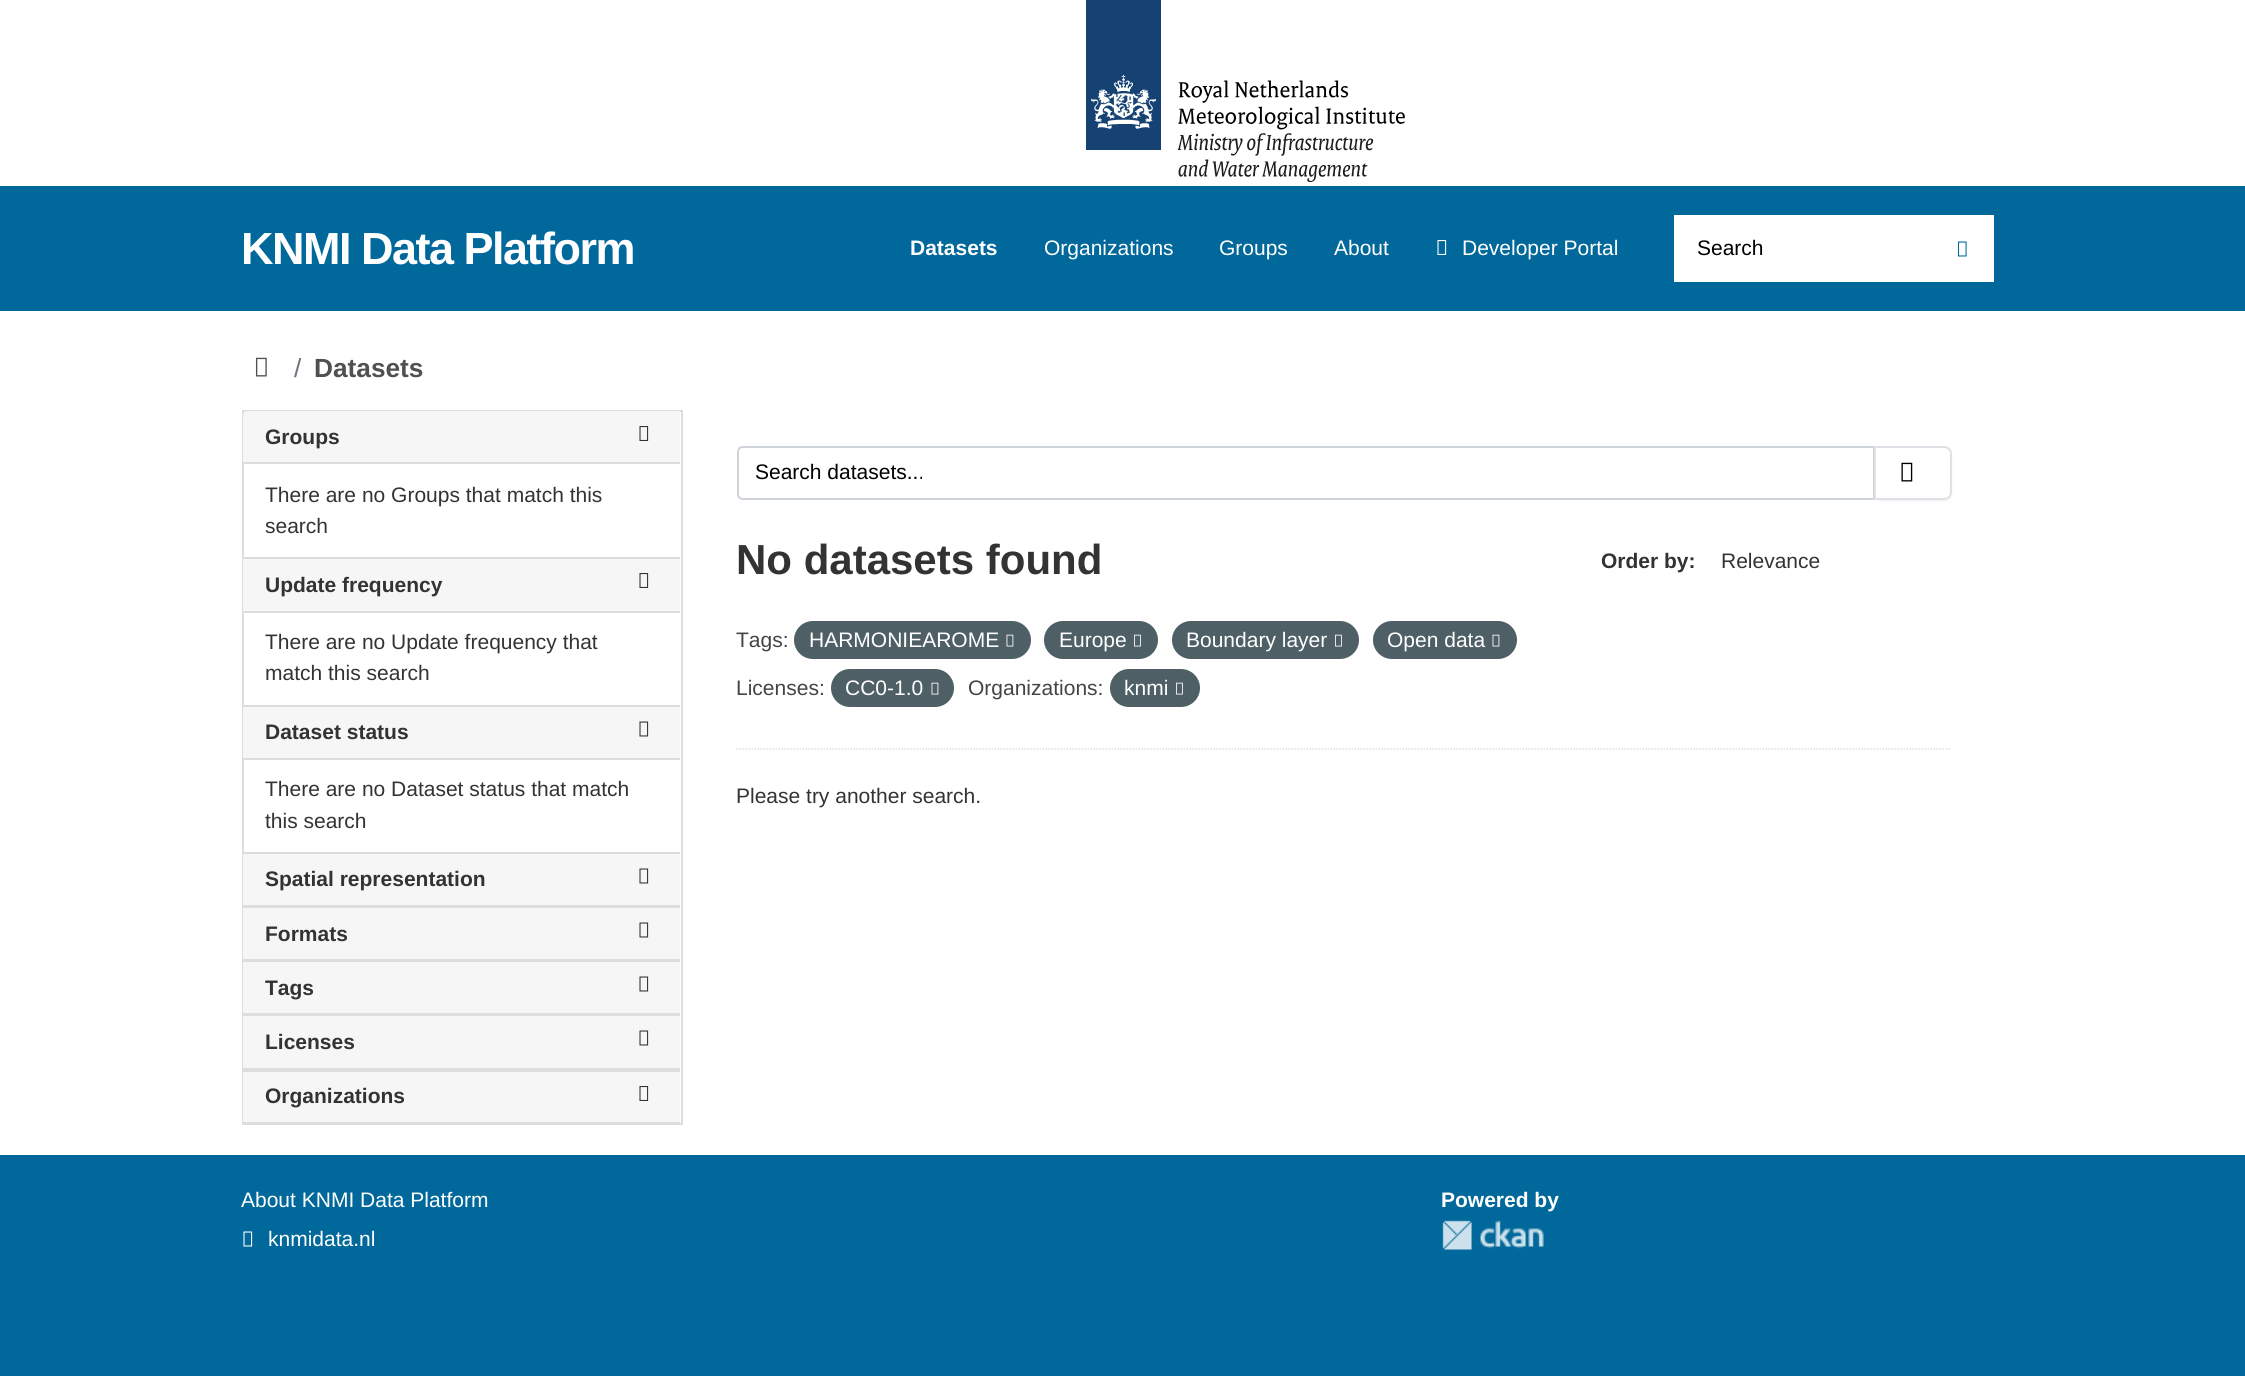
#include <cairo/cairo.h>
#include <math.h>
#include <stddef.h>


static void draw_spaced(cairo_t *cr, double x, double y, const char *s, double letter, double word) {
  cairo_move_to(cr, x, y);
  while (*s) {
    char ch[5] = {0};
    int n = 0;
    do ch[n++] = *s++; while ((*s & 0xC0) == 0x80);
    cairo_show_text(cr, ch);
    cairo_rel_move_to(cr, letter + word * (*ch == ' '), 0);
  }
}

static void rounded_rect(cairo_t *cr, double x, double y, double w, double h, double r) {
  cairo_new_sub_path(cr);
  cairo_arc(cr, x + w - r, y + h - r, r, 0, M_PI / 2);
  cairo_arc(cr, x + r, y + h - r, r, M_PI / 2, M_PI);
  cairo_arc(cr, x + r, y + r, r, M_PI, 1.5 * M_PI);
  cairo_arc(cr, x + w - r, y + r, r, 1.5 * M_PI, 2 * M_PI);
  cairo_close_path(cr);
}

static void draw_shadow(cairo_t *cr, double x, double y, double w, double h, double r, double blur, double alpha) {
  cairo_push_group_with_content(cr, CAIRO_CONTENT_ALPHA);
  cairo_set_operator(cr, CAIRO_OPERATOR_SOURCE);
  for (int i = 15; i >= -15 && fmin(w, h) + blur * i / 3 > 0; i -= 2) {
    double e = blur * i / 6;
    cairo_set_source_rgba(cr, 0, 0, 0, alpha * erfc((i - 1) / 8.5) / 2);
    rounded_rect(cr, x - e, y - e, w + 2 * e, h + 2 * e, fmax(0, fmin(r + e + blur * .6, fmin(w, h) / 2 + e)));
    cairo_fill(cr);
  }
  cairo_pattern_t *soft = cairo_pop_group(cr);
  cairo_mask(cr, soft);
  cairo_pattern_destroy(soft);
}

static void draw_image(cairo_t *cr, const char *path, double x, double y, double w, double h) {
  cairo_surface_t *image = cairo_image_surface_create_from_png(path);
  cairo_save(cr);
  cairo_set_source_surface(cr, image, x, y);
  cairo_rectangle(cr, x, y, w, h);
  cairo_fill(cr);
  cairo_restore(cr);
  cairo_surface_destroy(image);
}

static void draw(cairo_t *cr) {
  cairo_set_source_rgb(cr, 1 / 255.0, 104 / 255.0, 155 / 255.0);
  cairo_paint(cr);
  cairo_set_source_rgb(cr, 1, 1, 1);
  cairo_rectangle(cr, 0, 0, 2245, 186);
  cairo_fill(cr);
  draw_image(cr, "images/1.png", 1086, 0, 319, 182);
  draw_image(cr, "images/2.png", 1437, 240, 10, 15);
  cairo_rectangle(cr, 1674, 215, 320, 67);
  cairo_fill(cr);
  draw_image(cr, "images/3.png", 1957, 241, 10, 16);
  cairo_rectangle(cr, 0, 311, 2245, 844);
  cairo_fill(cr);
  draw_image(cr, "images/4.png", 255, 357, 12, 20);
  cairo_rectangle(cr, 243, 411, 439, 713);
  cairo_set_source_rgb(cr, 221 / 255.0, 221 / 255.0, 221 / 255.0);
  cairo_stroke(cr);
  cairo_set_source_rgb(cr, 246 / 255.0, 246 / 255.0, 246 / 255.0);
  cairo_new_path(cr);
  cairo_move_to(cr, 248, 411);
  cairo_line_to(cr, 680, 411);
  cairo_line_to(cr, 680, 464);
  cairo_line_to(cr, 243, 464);
  cairo_line_to(cr, 243, 416);
  cairo_curve_to(cr, 243, 413, 245, 411, 248, 411);
  cairo_close_path(cr);
  cairo_fill(cr);
  cairo_set_source_rgb(cr, 221 / 255.0, 221 / 255.0, 221 / 255.0);
  cairo_rectangle(cr, 243, 462, 437, 2);
  cairo_fill(cr);
  draw_image(cr, "images/5.png", 639, 426, 10, 15);
  cairo_set_source_rgb(cr, 246 / 255.0, 246 / 255.0, 246 / 255.0);
  cairo_rectangle(cr, 243, 559, 437, 52);
  cairo_fill(cr);
  cairo_set_source_rgb(cr, 221 / 255.0, 221 / 255.0, 221 / 255.0);
  cairo_rectangle(cr, 243, 557, 437, 2);
  cairo_fill(cr);
  cairo_rectangle(cr, 243, 611, 437, 2);
  cairo_fill(cr);
  draw_image(cr, "images/5.png", 639, 573, 10, 15);
  cairo_set_source_rgb(cr, 246 / 255.0, 246 / 255.0, 246 / 255.0);
  cairo_rectangle(cr, 243, 707, 437, 51);
  cairo_fill(cr);
  cairo_set_source_rgb(cr, 221 / 255.0, 221 / 255.0, 221 / 255.0);
  cairo_rectangle(cr, 243, 705, 437, 2);
  cairo_fill(cr);
  cairo_rectangle(cr, 243, 758, 437, 2);
  cairo_fill(cr);
  draw_image(cr, "images/6.png", 639, 721, 10, 16);
  cairo_set_source_rgb(cr, 246 / 255.0, 246 / 255.0, 246 / 255.0);
  cairo_rectangle(cr, 243, 854, 437, 51);
  cairo_fill(cr);
  cairo_set_source_rgb(cr, 221 / 255.0, 221 / 255.0, 221 / 255.0);
  cairo_rectangle(cr, 243, 852, 437, 2);
  cairo_fill(cr);
  cairo_rectangle(cr, 243, 905, 437, 3);
  cairo_fill(cr);
  draw_image(cr, "images/6.png", 639, 868, 10, 16);
  cairo_set_source_rgb(cr, 246 / 255.0, 246 / 255.0, 246 / 255.0);
  cairo_rectangle(cr, 243, 908, 437, 51);
  cairo_fill(cr);
  cairo_set_source_rgb(cr, 221 / 255.0, 221 / 255.0, 221 / 255.0);
  cairo_rectangle(cr, 243, 959, 437, 3);
  cairo_fill(cr);
  draw_image(cr, "images/6.png", 639, 922, 10, 16);
  cairo_set_source_rgb(cr, 246 / 255.0, 246 / 255.0, 246 / 255.0);
  cairo_rectangle(cr, 243, 962, 437, 51);
  cairo_fill(cr);
  cairo_set_source_rgb(cr, 221 / 255.0, 221 / 255.0, 221 / 255.0);
  cairo_rectangle(cr, 243, 1013, 437, 3);
  cairo_fill(cr);
  draw_image(cr, "images/6.png", 639, 976, 10, 16);
  cairo_set_source_rgb(cr, 246 / 255.0, 246 / 255.0, 246 / 255.0);
  cairo_rectangle(cr, 243, 1016, 437, 52);
  cairo_fill(cr);
  cairo_set_source_rgb(cr, 221 / 255.0, 221 / 255.0, 221 / 255.0);
  cairo_rectangle(cr, 243, 1068, 437, 4);
  cairo_fill(cr);
  draw_image(cr, "images/6.png", 639, 1030, 10, 16);
  cairo_set_source_rgb(cr, 246 / 255.0, 246 / 255.0, 246 / 255.0);
  cairo_rectangle(cr, 243, 1072, 437, 50);
  cairo_fill(cr);
  cairo_set_source_rgb(cr, 221 / 255.0, 221 / 255.0, 221 / 255.0);
  cairo_rectangle(cr, 243, 1122, 437, 1);
  cairo_fill(cr);
  draw_image(cr, "images/5.png", 639, 1086, 10, 15);
  cairo_new_path(cr);
  cairo_move_to(cr, 736.5, 749);
  cairo_line_to(cr, 1951.5, 749);
  cairo_set_line_width(cr, 1.5);
  cairo_set_dash(cr, (double[]){1.5, 1.5}, 2, 0);
  cairo_stroke(cr);
  cairo_new_path(cr);
  cairo_move_to(cr, 743, 447);
  cairo_line_to(cr, 1874, 447);
  cairo_line_to(cr, 1874, 499);
  cairo_line_to(cr, 743, 499);
  cairo_curve_to(cr, 740, 499, 738, 497, 738, 494);
  cairo_line_to(cr, 738, 452);
  cairo_curve_to(cr, 738, 449, 740, 447, 743, 447);
  cairo_close_path(cr);
  cairo_set_source_rgb(cr, 206 / 255.0, 212 / 255.0, 218 / 255.0);
  cairo_set_line_width(cr, 2);
  cairo_set_dash(cr, NULL, 0, 0);
  cairo_stroke(cr);
  cairo_set_source_rgb(cr, 0, 0, 0);
  draw_shadow(cr, 1874, 447, 78, 54, 8, 1, 0.07);
  cairo_set_source_rgb(cr, 1, 1, 1);
  cairo_new_path(cr);
  cairo_move_to(cr, 1875, 447);
  cairo_line_to(cr, 1944, 447);
  cairo_curve_to(cr, 1948, 447, 1951, 450, 1951, 454);
  cairo_line_to(cr, 1951, 492);
  cairo_curve_to(cr, 1951, 496, 1948, 499, 1944, 499);
  cairo_line_to(cr, 1875, 499);
  cairo_close_path(cr);
  cairo_fill_preserve(cr);
  cairo_set_source_rgb(cr, 222 / 255.0, 226 / 255.0, 230 / 255.0);
  cairo_stroke(cr);
  draw_image(cr, "images/7.png", 1901, 462, 12, 20);
  cairo_set_source_rgb(cr, 78 / 255.0, 95 / 255.0, 101 / 255.0);
  rounded_rect(cr, 794, 621, 237, 38, 19);
  cairo_fill(cr);
  draw_image(cr, "images/8.png", 1006, 634, 8, 13);
  rounded_rect(cr, 1044, 621, 114, 38, 19);
  cairo_fill(cr);
  draw_image(cr, "images/9.png", 1134, 634, 7, 13);
  rounded_rect(cr, 1172, 621, 187, 38, 19);
  cairo_fill(cr);
  draw_image(cr, "images/9.png", 1335, 634, 7, 13);
  rounded_rect(cr, 1373, 621, 144, 38, 19);
  cairo_fill(cr);
  draw_image(cr, "images/8.png", 1492, 634, 8, 13);
  rounded_rect(cr, 831, 669, 123, 38, 19);
  cairo_fill(cr);
  draw_image(cr, "images/8.png", 931, 682, 8, 13);
  rounded_rect(cr, 1110, 669, 90, 38, 19);
  cairo_fill(cr);
  draw_image(cr, "images/9.png", 1176, 682, 7, 13);
  draw_image(cr, "images/10.png", 243, 1231, 10, 16);
  draw_image(cr, "images/11.png", 1442, 1220, 102, 30);
  cairo_select_font_face(cr, "Liberation Sans", CAIRO_FONT_SLANT_NORMAL, CAIRO_FONT_WEIGHT_BOLD);
  cairo_set_font_size(cr, 45);
  cairo_set_source_rgb(cr, 1, 1, 1);
  draw_spaced(cr, 241, 264, "KNMI Data Platform", -1.5, 0);
  cairo_set_font_size(cr, 21);
  cairo_move_to(cr, 910, 255);
  cairo_show_text(cr, "Datasets");
  cairo_select_font_face(cr, "Liberation Sans", CAIRO_FONT_SLANT_NORMAL, CAIRO_FONT_WEIGHT_NORMAL);
  cairo_move_to(cr, 1044, 255);
  cairo_show_text(cr, "Organizations");
  cairo_move_to(cr, 1219, 255);
  cairo_show_text(cr, "Groups");
  cairo_move_to(cr, 1334, 255);
  cairo_show_text(cr, "About");
  cairo_move_to(cr, 1462, 255);
  cairo_show_text(cr, "Developer Portal");
  cairo_set_source_rgb(cr, 0, 0, 0);
  cairo_move_to(cr, 1697, 255);
  cairo_show_text(cr, "Search");
  cairo_set_font_size(cr, 26.25);
  cairo_set_source_rgb(cr, 108 / 255.0, 117 / 255.0, 125 / 255.0);
  cairo_move_to(cr, 294, 377);
  cairo_show_text(cr, "/");
  cairo_select_font_face(cr, "Liberation Sans", CAIRO_FONT_SLANT_NORMAL, CAIRO_FONT_WEIGHT_BOLD);
  cairo_set_source_rgb(cr, 80 / 255.0, 80 / 255.0, 80 / 255.0);
  cairo_move_to(cr, 314, 377);
  cairo_show_text(cr, "Datasets");
  cairo_set_font_size(cr, 21);
  cairo_set_source_rgb(cr, 51 / 255.0, 51 / 255.0, 51 / 255.0);
  cairo_move_to(cr, 265, 444);
  cairo_show_text(cr, "Groups");
  cairo_select_font_face(cr, "Liberation Sans", CAIRO_FONT_SLANT_NORMAL, CAIRO_FONT_WEIGHT_NORMAL);
  cairo_move_to(cr, 265, 502);
  cairo_show_text(cr, "There are no Groups that match this");
  cairo_move_to(cr, 265, 533);
  cairo_show_text(cr, "search");
  cairo_select_font_face(cr, "Liberation Sans", CAIRO_FONT_SLANT_NORMAL, CAIRO_FONT_WEIGHT_BOLD);
  cairo_move_to(cr, 265, 592);
  cairo_show_text(cr, "Update frequency");
  cairo_select_font_face(cr, "Liberation Sans", CAIRO_FONT_SLANT_NORMAL, CAIRO_FONT_WEIGHT_NORMAL);
  cairo_move_to(cr, 265, 649);
  cairo_show_text(cr, "There are no Update frequency that");
  cairo_move_to(cr, 265, 680);
  cairo_show_text(cr, "match this search");
  cairo_select_font_face(cr, "Liberation Sans", CAIRO_FONT_SLANT_NORMAL, CAIRO_FONT_WEIGHT_BOLD);
  cairo_move_to(cr, 265, 739);
  cairo_show_text(cr, "Dataset status");
  cairo_select_font_face(cr, "Liberation Sans", CAIRO_FONT_SLANT_NORMAL, CAIRO_FONT_WEIGHT_NORMAL);
  cairo_move_to(cr, 265, 796);
  cairo_show_text(cr, "There are no Dataset status that match");
  cairo_move_to(cr, 265, 828);
  cairo_show_text(cr, "this search");
  cairo_select_font_face(cr, "Liberation Sans", CAIRO_FONT_SLANT_NORMAL, CAIRO_FONT_WEIGHT_BOLD);
  cairo_move_to(cr, 265, 886);
  cairo_show_text(cr, "Spatial representation");
  cairo_move_to(cr, 265, 941);
  cairo_show_text(cr, "Formats");
  cairo_move_to(cr, 265, 995);
  cairo_show_text(cr, "Tags");
  cairo_move_to(cr, 265, 1049);
  cairo_show_text(cr, "Licenses");
  cairo_move_to(cr, 265, 1103);
  cairo_show_text(cr, "Organizations");
  cairo_select_font_face(cr, "Liberation Sans", CAIRO_FONT_SLANT_NORMAL, CAIRO_FONT_WEIGHT_NORMAL);
  cairo_set_source_rgb(cr, 0, 0, 0);
  cairo_move_to(cr, 755, 479);
  cairo_show_text(cr, "Search datasets...");
  cairo_select_font_face(cr, "Liberation Sans", CAIRO_FONT_SLANT_NORMAL, CAIRO_FONT_WEIGHT_BOLD);
  cairo_set_font_size(cr, 42);
  cairo_set_source_rgb(cr, 51 / 255.0, 51 / 255.0, 51 / 255.0);
  cairo_move_to(cr, 736, 574);
  cairo_show_text(cr, "No datasets found");
  cairo_set_font_size(cr, 21);
  cairo_move_to(cr, 1601, 568);
  cairo_show_text(cr, "Order by:");
  cairo_select_font_face(cr, "Liberation Sans", CAIRO_FONT_SLANT_NORMAL, CAIRO_FONT_WEIGHT_NORMAL);
  cairo_move_to(cr, 1721, 568);
  cairo_show_text(cr, "Relevance");
  cairo_set_source_rgb(cr, 68 / 255.0, 68 / 255.0, 68 / 255.0);
  cairo_move_to(cr, 736, 647);
  cairo_show_text(cr, "Tags:");
  cairo_set_source_rgb(cr, 1, 1, 1);
  cairo_move_to(cr, 809, 647);
  cairo_show_text(cr, "HARMONIEAROME");
  cairo_move_to(cr, 1059, 647);
  cairo_show_text(cr, "Europe");
  cairo_move_to(cr, 1186, 647);
  cairo_show_text(cr, "Boundary layer");
  cairo_move_to(cr, 1387, 647);
  cairo_show_text(cr, "Open data");
  cairo_set_source_rgb(cr, 68 / 255.0, 68 / 255.0, 68 / 255.0);
  cairo_move_to(cr, 736, 695);
  cairo_show_text(cr, "Licenses:");
  cairo_set_source_rgb(cr, 1, 1, 1);
  cairo_move_to(cr, 845, 695);
  cairo_show_text(cr, "CC0-1.0");
  cairo_set_source_rgb(cr, 68 / 255.0, 68 / 255.0, 68 / 255.0);
  cairo_move_to(cr, 968, 695);
  cairo_show_text(cr, "Organizations:");
  cairo_set_source_rgb(cr, 1, 1, 1);
  cairo_move_to(cr, 1124, 695);
  cairo_show_text(cr, "knmi");
  cairo_set_source_rgb(cr, 51 / 255.0, 51 / 255.0, 51 / 255.0);
  cairo_move_to(cr, 736, 803);
  cairo_show_text(cr, "Please try another search.");
  cairo_set_source_rgb(cr, 1, 1, 1);
  cairo_move_to(cr, 241, 1207);
  cairo_show_text(cr, "About KNMI Data Platform");
  cairo_move_to(cr, 268, 1246);
  cairo_show_text(cr, "knmidata.nl");
  cairo_select_font_face(cr, "Liberation Sans", CAIRO_FONT_SLANT_NORMAL, CAIRO_FONT_WEIGHT_BOLD);
  cairo_move_to(cr, 1441, 1207);
  cairo_show_text(cr, "Powered by");
}

int main(void) {
  cairo_surface_t *surface = cairo_image_surface_create(CAIRO_FORMAT_RGB24, 2245, 1376);
  cairo_t *cr = cairo_create(surface);
  cairo_font_options_t *options = cairo_font_options_create();
  cairo_font_options_set_hint_metrics(options, CAIRO_HINT_METRICS_OFF);
  cairo_font_options_set_hint_style(options, CAIRO_HINT_STYLE_NONE);
  cairo_set_font_options(cr, options);
  cairo_set_miter_limit(cr, 4);
  draw(cr);
  cairo_surface_write_to_png(surface, "out.png");
  cairo_font_options_destroy(options);
  cairo_destroy(cr);
  cairo_surface_destroy(surface);
  return 0;
}
